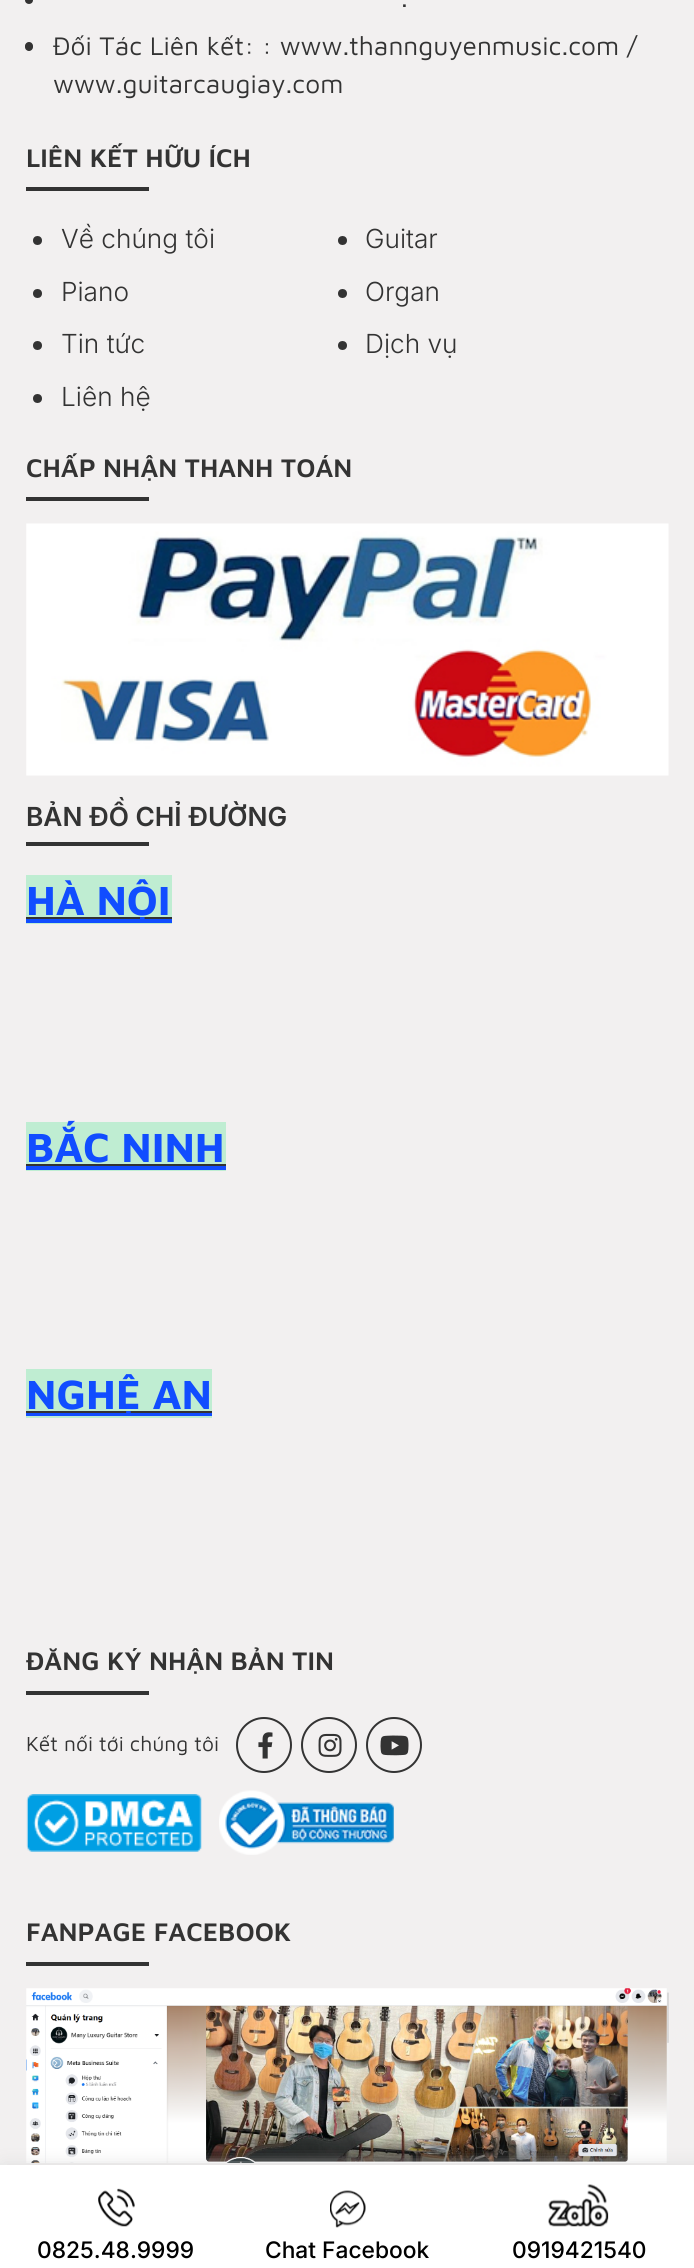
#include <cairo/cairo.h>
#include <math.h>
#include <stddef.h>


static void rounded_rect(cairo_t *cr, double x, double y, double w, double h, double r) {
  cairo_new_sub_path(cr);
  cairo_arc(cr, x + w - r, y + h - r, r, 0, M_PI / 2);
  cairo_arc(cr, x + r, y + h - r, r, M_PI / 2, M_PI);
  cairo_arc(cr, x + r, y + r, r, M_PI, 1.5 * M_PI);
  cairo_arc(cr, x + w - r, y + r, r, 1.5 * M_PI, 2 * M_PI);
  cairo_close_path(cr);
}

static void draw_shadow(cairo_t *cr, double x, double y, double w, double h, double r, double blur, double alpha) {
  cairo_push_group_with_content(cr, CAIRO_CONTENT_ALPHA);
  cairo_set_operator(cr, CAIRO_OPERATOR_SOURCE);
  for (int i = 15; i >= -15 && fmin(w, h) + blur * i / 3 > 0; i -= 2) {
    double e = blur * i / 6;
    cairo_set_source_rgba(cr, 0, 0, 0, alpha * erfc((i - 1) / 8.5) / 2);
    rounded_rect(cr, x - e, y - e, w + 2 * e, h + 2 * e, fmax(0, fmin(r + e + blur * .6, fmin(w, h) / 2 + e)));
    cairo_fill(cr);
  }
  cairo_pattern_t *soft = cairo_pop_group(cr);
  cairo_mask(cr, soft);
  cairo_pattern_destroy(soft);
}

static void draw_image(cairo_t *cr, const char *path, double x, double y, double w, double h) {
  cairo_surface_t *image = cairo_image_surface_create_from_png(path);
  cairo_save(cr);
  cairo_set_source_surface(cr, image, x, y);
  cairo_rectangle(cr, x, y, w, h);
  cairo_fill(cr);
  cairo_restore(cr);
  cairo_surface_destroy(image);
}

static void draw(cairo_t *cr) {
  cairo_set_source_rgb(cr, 242 / 255.0, 240 / 255.0, 240 / 255.0);
  cairo_paint(cr);
  cairo_set_source_rgb(cr, 51 / 255.0, 51 / 255.0, 51 / 255.0);
  cairo_arc(cr, 29, 0, 4, 0, 2 * M_PI);
  cairo_fill(cr);
  rounded_rect(cr, 25, 42, 8, 9, 4);
  cairo_fill(cr);
  cairo_rectangle(cr, 26, 187, 123, 4);
  cairo_fill(cr);
  cairo_arc(cr, 37.5, 240.5, 4.5, 0, 2 * M_PI);
  cairo_fill(cr);
  cairo_arc(cr, 342.5, 240.5, 4.5, 0, 2 * M_PI);
  cairo_fill(cr);
  cairo_arc(cr, 37.5, 293.5, 4.5, 0, 2 * M_PI);
  cairo_fill(cr);
  cairo_arc(cr, 342.5, 293.5, 4.5, 0, 2 * M_PI);
  cairo_fill(cr);
  cairo_arc(cr, 37.5, 345.5, 4.5, 0, 2 * M_PI);
  cairo_fill(cr);
  cairo_arc(cr, 342.5, 345.5, 4.5, 0, 2 * M_PI);
  cairo_fill(cr);
  cairo_arc(cr, 37.5, 398.5, 4.5, 0, 2 * M_PI);
  cairo_fill(cr);
  cairo_rectangle(cr, 26, 497, 123, 4);
  cairo_fill(cr);
  draw_image(cr, "images/1.png", 26, 523, 643, 253);
  cairo_rectangle(cr, 26, 842, 123, 4);
  cairo_fill(cr);
  cairo_set_source_rgb(cr, 191 / 255.0, 237 / 255.0, 210 / 255.0);
  cairo_rectangle(cr, 26, 875, 146, 49);
  cairo_fill(cr);
  cairo_set_source_rgb(cr, 17 / 255.0, 77 / 255.0, 1);
  cairo_rectangle(cr, 26, 919, 146, 4);
  cairo_fill(cr);
  cairo_set_source_rgb(cr, 51 / 255.0, 51 / 255.0, 51 / 255.0);
  cairo_rectangle(cr, 26, 917, 146, 2);
  cairo_fill(cr);
  cairo_set_source_rgb(cr, 191 / 255.0, 237 / 255.0, 210 / 255.0);
  cairo_rectangle(cr, 26, 1122, 200, 49);
  cairo_fill(cr);
  cairo_set_source_rgb(cr, 17 / 255.0, 77 / 255.0, 1);
  cairo_rectangle(cr, 26, 1166, 200, 4);
  cairo_fill(cr);
  cairo_set_source_rgb(cr, 51 / 255.0, 51 / 255.0, 51 / 255.0);
  cairo_rectangle(cr, 26, 1164, 200, 2);
  cairo_fill(cr);
  cairo_set_source_rgb(cr, 191 / 255.0, 237 / 255.0, 210 / 255.0);
  cairo_rectangle(cr, 26, 1369, 186, 49);
  cairo_fill(cr);
  cairo_set_source_rgb(cr, 17 / 255.0, 77 / 255.0, 1);
  cairo_rectangle(cr, 26, 1413, 186, 3);
  cairo_fill(cr);
  cairo_set_source_rgb(cr, 51 / 255.0, 51 / 255.0, 51 / 255.0);
  cairo_rectangle(cr, 26, 1411, 186, 2);
  cairo_fill(cr);
  cairo_rectangle(cr, 26, 1691, 123, 4);
  cairo_fill(cr);
  cairo_arc(cr, 264, 1745, 27, 0, 2 * M_PI);
  cairo_stroke(cr);
  draw_image(cr, "images/2.png", 258, 1732, 15, 27);
  cairo_arc(cr, 329, 1745, 27, 0, 2 * M_PI);
  cairo_stroke(cr);
  draw_image(cr, "images/3.png", 318, 1733, 24, 24);
  cairo_arc(cr, 394, 1745, 27, 0, 2 * M_PI);
  cairo_stroke(cr);
  draw_image(cr, "images/4.png", 380, 1735, 29, 21);
  draw_image(cr, "images/5.png", 26, 1794, 176, 58);
  draw_image(cr, "images/6.png", 219, 1790, 175, 65);
  cairo_rectangle(cr, 26, 1962, 123, 4);
  cairo_fill(cr);
  draw_image(cr, "images/7.png", 26, 1988, 643, 175);
  cairo_set_source_rgb(cr, 222 / 255.0, 222 / 255.0, 222 / 255.0);
  draw_shadow(cr, 4, 2165, 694, 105, 0, 8, 1);
  cairo_set_source_rgb(cr, 1, 1, 1);
  cairo_rectangle(cr, 0, 2165, 694, 103);
  cairo_fill(cr);
  cairo_set_source_rgb(cr, 234 / 255.0, 234 / 255.0, 234 / 255.0);
  cairo_rectangle(cr, 0, 2163, 7, 2);
  cairo_fill(cr);
  draw_image(cr, "images/8.png", 98, 2188, 37, 39);
  draw_image(cr, "images/9.png", 330, 2190, 36, 38);
  draw_image(cr, "images/10.png", 548, 2184, 61, 43);
  cairo_select_font_face(cr, "Maven Pro", CAIRO_FONT_SLANT_NORMAL, CAIRO_FONT_WEIGHT_NORMAL);
  cairo_set_font_size(cr, 26.25);
  cairo_set_source_rgb(cr, 51 / 255.0, 51 / 255.0, 51 / 255.0);
  cairo_move_to(cr, 401, 7);
  cairo_show_text(cr, ".");
  cairo_move_to(cr, 53, 55);
  cairo_show_text(cr, "Đối Tác Liên kết: : www.thannguyenmusic.com /");
  cairo_move_to(cr, 53, 93);
  cairo_show_text(cr, "www.guitarcaugiay.com");
  cairo_select_font_face(cr, "Maven Pro SemiBold", CAIRO_FONT_SLANT_NORMAL, CAIRO_FONT_WEIGHT_NORMAL);
  cairo_move_to(cr, 26, 167);
  cairo_show_text(cr, "LIÊN KẾT HỮU ÍCH");
  cairo_select_font_face(cr, "Inter Light", CAIRO_FONT_SLANT_NORMAL, CAIRO_FONT_WEIGHT_NORMAL);
  cairo_move_to(cr, 61, 248);
  cairo_show_text(cr, "Về chúng tôi");
  cairo_move_to(cr, 365, 248);
  cairo_show_text(cr, "Guitar");
  cairo_move_to(cr, 61, 301);
  cairo_show_text(cr, "Piano");
  cairo_move_to(cr, 365, 301);
  cairo_show_text(cr, "Organ");
  cairo_move_to(cr, 61, 353);
  cairo_show_text(cr, "Tin tức");
  cairo_move_to(cr, 365, 353);
  cairo_show_text(cr, "Dịch vụ");
  cairo_move_to(cr, 61, 406);
  cairo_show_text(cr, "Liên hệ");
  cairo_select_font_face(cr, "Maven Pro SemiBold", CAIRO_FONT_SLANT_NORMAL, CAIRO_FONT_WEIGHT_NORMAL);
  cairo_move_to(cr, 26, 477);
  cairo_show_text(cr, "CHẤP NHẬN THANH TOÁN");
  cairo_select_font_face(cr, "Inter SemiBold", CAIRO_FONT_SLANT_NORMAL, CAIRO_FONT_WEIGHT_NORMAL);
  cairo_move_to(cr, 26, 826);
  cairo_show_text(cr, "BẢN ĐỒ CHỈ ĐƯỜNG");
  cairo_select_font_face(cr, "Maven Pro", CAIRO_FONT_SLANT_NORMAL, CAIRO_FONT_WEIGHT_BOLD);
  cairo_set_font_size(cr, 42);
  cairo_set_source_rgb(cr, 17 / 255.0, 77 / 255.0, 1);
  cairo_move_to(cr, 26, 915);
  cairo_show_text(cr, "HÀ NỘI");
  cairo_move_to(cr, 26, 1162);
  cairo_show_text(cr, "BẮC NINH");
  cairo_move_to(cr, 26, 1409);
  cairo_show_text(cr, "NGHỆ AN");
  cairo_select_font_face(cr, "Maven Pro SemiBold", CAIRO_FONT_SLANT_NORMAL, CAIRO_FONT_WEIGHT_NORMAL);
  cairo_set_font_size(cr, 26.25);
  cairo_set_source_rgb(cr, 51 / 255.0, 51 / 255.0, 51 / 255.0);
  cairo_move_to(cr, 26, 1670);
  cairo_show_text(cr, "ĐĂNG KÝ NHẬN BẢN TIN");
  cairo_select_font_face(cr, "Maven Pro", CAIRO_FONT_SLANT_NORMAL, CAIRO_FONT_WEIGHT_NORMAL);
  cairo_set_font_size(cr, 21);
  cairo_move_to(cr, 26, 1751);
  cairo_show_text(cr, "Kết nối tới chúng tôi");
  cairo_select_font_face(cr, "Maven Pro SemiBold", CAIRO_FONT_SLANT_NORMAL, CAIRO_FONT_WEIGHT_NORMAL);
  cairo_set_font_size(cr, 26.25);
  cairo_move_to(cr, 26, 1941);
  cairo_show_text(cr, "FANPAGE FACEBOOK");
  cairo_select_font_face(cr, "Inter Medium", CAIRO_FONT_SLANT_NORMAL, CAIRO_FONT_WEIGHT_NORMAL);
  cairo_set_font_size(cr, 22.75);
  cairo_set_source_rgb(cr, 0, 0, 0);
  cairo_move_to(cr, 37, 2258);
  cairo_show_text(cr, "0825.48.9999");
  cairo_move_to(cr, 265, 2258);
  cairo_show_text(cr, "Chat Facebook");
  cairo_move_to(cr, 512, 2258);
  cairo_show_text(cr, "0919421540");
}

int main(void) {
  cairo_surface_t *surface = cairo_image_surface_create(CAIRO_FORMAT_RGB24, 694, 2268);
  cairo_t *cr = cairo_create(surface);
  cairo_font_options_t *options = cairo_font_options_create();
  cairo_font_options_set_hint_metrics(options, CAIRO_HINT_METRICS_OFF);
  cairo_font_options_set_hint_style(options, CAIRO_HINT_STYLE_NONE);
  cairo_set_font_options(cr, options);
  cairo_set_miter_limit(cr, 4);
  draw(cr);
  cairo_surface_write_to_png(surface, "out.png");
  cairo_font_options_destroy(options);
  cairo_destroy(cr);
  cairo_surface_destroy(surface);
  return 0;
}
